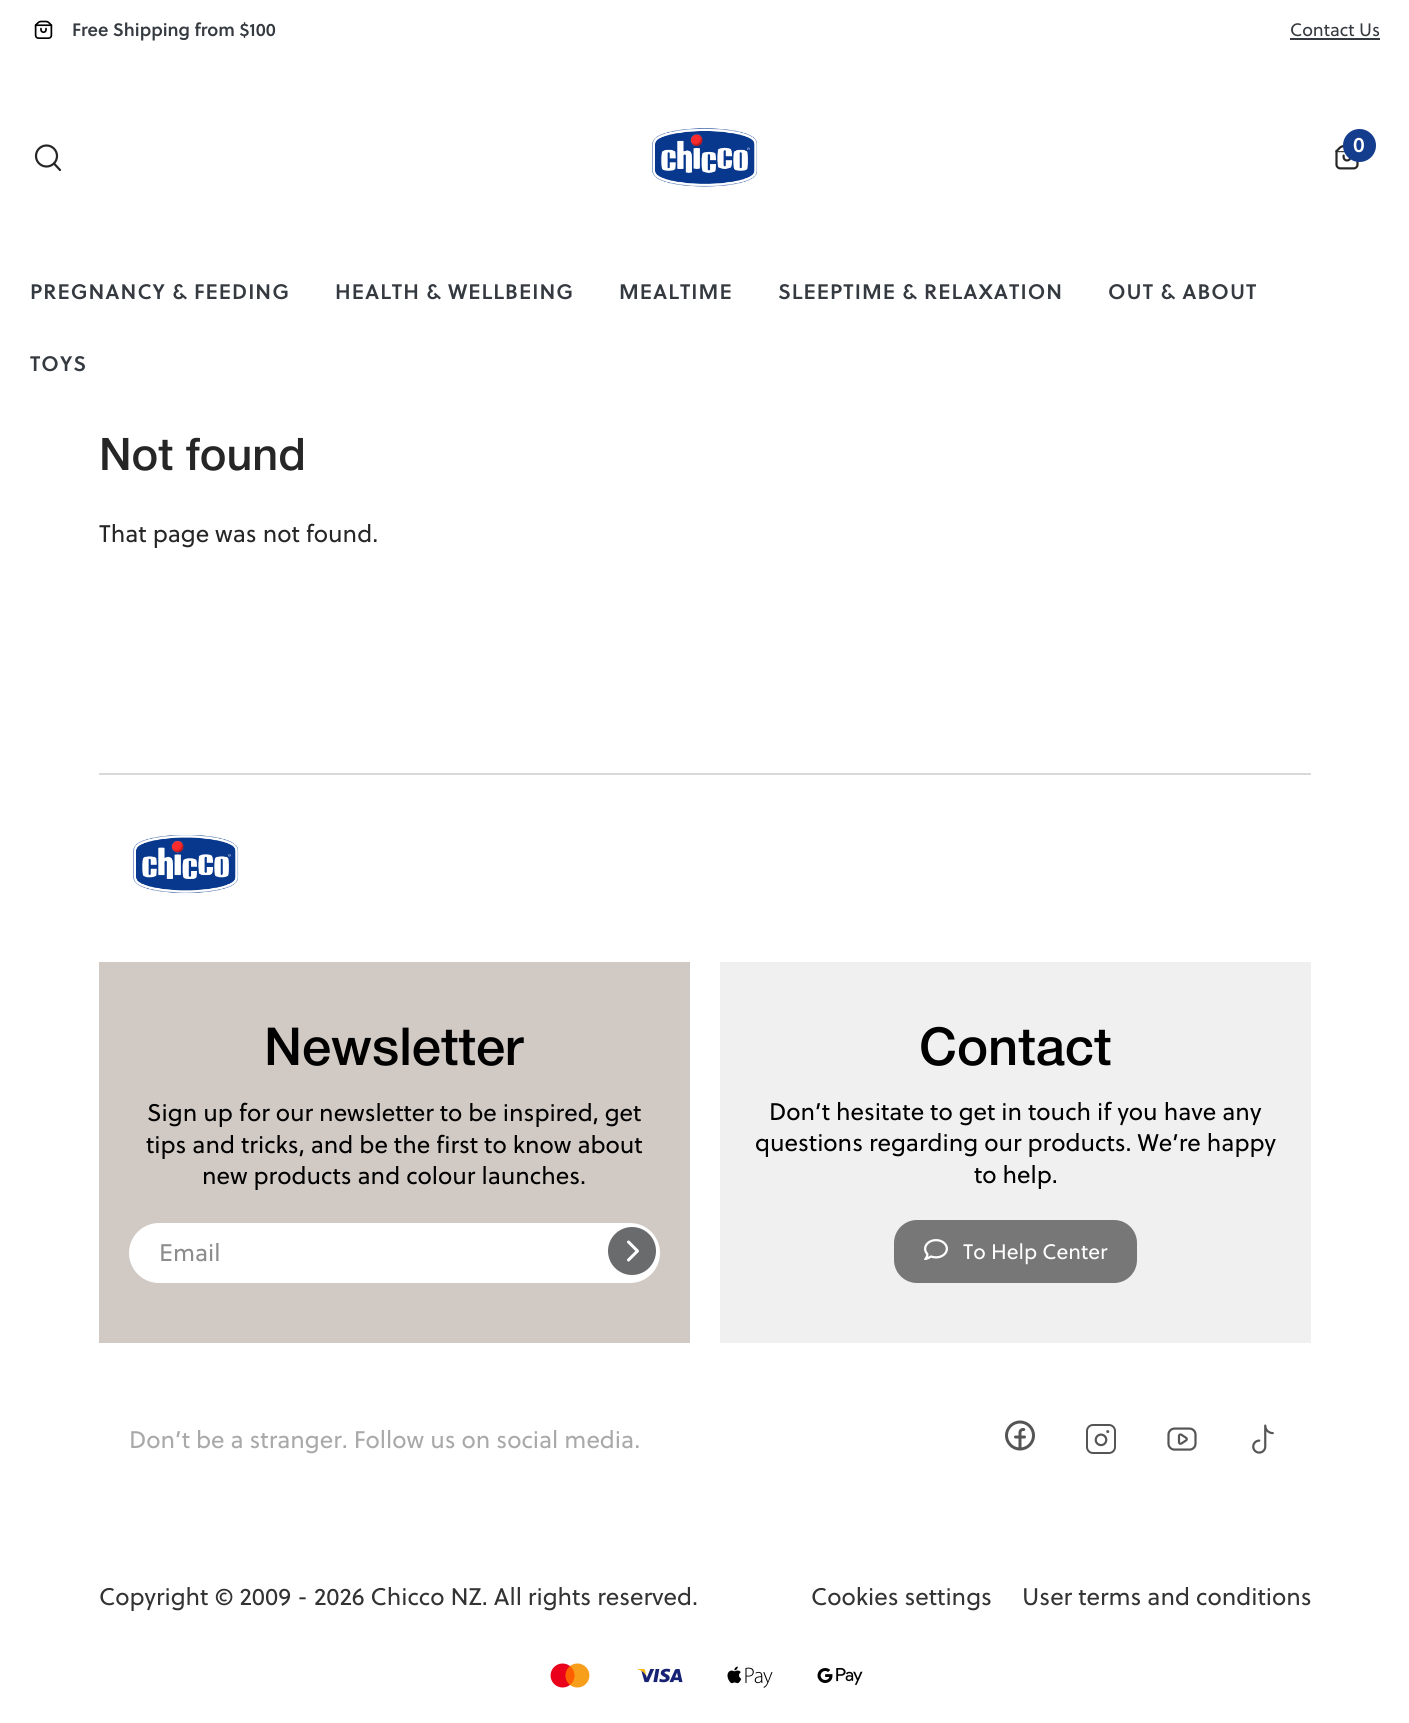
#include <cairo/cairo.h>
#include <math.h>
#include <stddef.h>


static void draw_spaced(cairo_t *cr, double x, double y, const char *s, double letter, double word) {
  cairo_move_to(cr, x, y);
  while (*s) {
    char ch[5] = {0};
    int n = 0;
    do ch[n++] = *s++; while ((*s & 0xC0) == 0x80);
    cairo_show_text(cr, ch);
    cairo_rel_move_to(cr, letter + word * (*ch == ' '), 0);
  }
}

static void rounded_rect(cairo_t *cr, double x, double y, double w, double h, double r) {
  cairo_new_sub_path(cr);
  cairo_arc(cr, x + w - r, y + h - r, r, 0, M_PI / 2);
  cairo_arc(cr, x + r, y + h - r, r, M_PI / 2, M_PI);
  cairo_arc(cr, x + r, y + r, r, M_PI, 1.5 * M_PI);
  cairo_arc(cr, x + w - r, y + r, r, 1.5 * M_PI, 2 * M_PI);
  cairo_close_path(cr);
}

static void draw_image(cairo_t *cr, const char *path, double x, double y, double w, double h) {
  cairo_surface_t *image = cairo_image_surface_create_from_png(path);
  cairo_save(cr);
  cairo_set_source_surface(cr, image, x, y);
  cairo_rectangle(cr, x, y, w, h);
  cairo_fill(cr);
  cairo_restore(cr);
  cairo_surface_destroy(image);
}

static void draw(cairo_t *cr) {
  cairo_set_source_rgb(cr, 1, 1, 1);
  cairo_paint(cr);
  draw_image(cr, "images/1.png", 34, 20, 19, 19);
  cairo_set_source_rgb(cr, 52 / 255.0, 58 / 255.0, 64 / 255.0);
  cairo_rectangle(cr, 1290, 38, 90, 2);
  cairo_fill(cr);
  cairo_arc(cr, 46.5, 156, 10.5, 0, 2 * M_PI);
  cairo_set_source_rgb(cr, 38 / 255.0, 38 / 255.0, 38 / 255.0);
  cairo_set_line_width(cr, 2.2);
  cairo_stroke(cr);
  cairo_new_path(cr);
  cairo_move_to(cr, 54, 163.5);
  cairo_line_to(cr, 60, 170);
  cairo_set_line_cap(cr, CAIRO_LINE_CAP_ROUND);
  cairo_set_line_join(cr, CAIRO_LINE_JOIN_ROUND);
  cairo_stroke(cr);
  draw_image(cr, "images/2.png", 652, 128, 106, 59);
  draw_image(cr, "images/3.png", 1335, 145, 24, 25);
  cairo_set_source_rgb(cr, 20 / 255.0, 61 / 255.0, 141 / 255.0);
  cairo_arc(cr, 1359.5, 145.5, 16.5, 0, 2 * M_PI);
  cairo_fill(cr);
  cairo_set_source_rgb(cr, 217 / 255.0, 217 / 255.0, 217 / 255.0);
  cairo_rectangle(cr, 99, 773, 1212, 2);
  cairo_fill(cr);
  draw_image(cr, "images/4.png", 133, 835, 106, 59);
  cairo_set_source_rgb(cr, 208 / 255.0, 201 / 255.0, 196 / 255.0);
  cairo_rectangle(cr, 99, 962, 591, 381);
  cairo_fill(cr);
  cairo_set_source_rgb(cr, 1, 1, 1);
  rounded_rect(cr, 129, 1223, 531, 60, 30);
  cairo_fill(cr);
  cairo_set_source_rgb(cr, 105 / 255.0, 107 / 255.0, 109 / 255.0);
  cairo_arc(cr, 632, 1251, 24, 0, 2 * M_PI);
  cairo_fill(cr);
  draw_image(cr, "images/5.png", 627, 1240, 12, 22);
  cairo_set_source_rgb(cr, 240 / 255.0, 240 / 255.0, 240 / 255.0);
  cairo_rectangle(cr, 720, 962, 591, 381);
  cairo_fill(cr);
  cairo_set_source_rgb(cr, 119 / 255.0, 119 / 255.0, 119 / 255.0);
  rounded_rect(cr, 894, 1220, 243, 63, 23);
  cairo_fill(cr);
  draw_image(cr, "images/6.png", 924, 1239, 24, 21);
  draw_image(cr, "images/7.png", 1005, 1420, 30, 31);
  draw_image(cr, "images/8.png", 1086, 1424, 30, 30);
  draw_image(cr, "images/9.png", 1167, 1427, 30, 24);
  draw_image(cr, "images/10.png", 1252, 1424, 22, 30);
  draw_image(cr, "images/11.png", 550, 1663, 40, 25);
  draw_image(cr, "images/12.png", 637, 1668, 46, 15);
  draw_image(cr, "images/13.png", 727, 1666, 46, 22);
  draw_image(cr, "images/14.png", 817, 1668, 46, 17);
  cairo_select_font_face(cr, "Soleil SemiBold", CAIRO_FONT_SLANT_NORMAL, CAIRO_FONT_WEIGHT_NORMAL);
  cairo_set_font_size(cr, 18);
  cairo_set_source_rgb(cr, 52 / 255.0, 58 / 255.0, 64 / 255.0);
  cairo_move_to(cr, 72, 36);
  cairo_show_text(cr, "Free Shipping from $100");
  cairo_select_font_face(cr, "Soleil", CAIRO_FONT_SLANT_NORMAL, CAIRO_FONT_WEIGHT_NORMAL);
  cairo_move_to(cr, 1290, 36);
  cairo_show_text(cr, "Contact Us");
  cairo_select_font_face(cr, "Soleil SemiBold", CAIRO_FONT_SLANT_NORMAL, CAIRO_FONT_WEIGHT_NORMAL);
  cairo_set_font_size(cr, 21);
  cairo_set_source_rgb(cr, 1, 1, 1);
  cairo_move_to(cr, 1353, 152);
  cairo_show_text(cr, "0");
  cairo_set_source_rgb(cr, 52 / 255.0, 58 / 255.0, 64 / 255.0);
  draw_spaced(cr, 30, 299, "PREGNANCY & FEEDING", 1.05, 0);
  draw_spaced(cr, 335, 299, "HEALTH & WELLBEING", 1.05, 0);
  draw_spaced(cr, 619, 299, "MEALTIME", 1.05, 0);
  draw_spaced(cr, 778, 299, "SLEEPTIME & RELAXATION", 1.05, 0);
  draw_spaced(cr, 1108, 299, "OUT & ABOUT", 1.05, 0);
  draw_spaced(cr, 30, 371, "TOYS", 1.05, 0);
  cairo_select_font_face(cr, "Helvetica Neue Medium", CAIRO_FONT_SLANT_NORMAL, CAIRO_FONT_WEIGHT_NORMAL);
  cairo_set_font_size(cr, 45);
  cairo_set_source_rgb(cr, 38 / 255.0, 38 / 255.0, 38 / 255.0);
  cairo_move_to(cr, 99, 470);
  cairo_show_text(cr, "Not found");
  cairo_select_font_face(cr, "Soleil", CAIRO_FONT_SLANT_NORMAL, CAIRO_FONT_WEIGHT_NORMAL);
  cairo_set_font_size(cr, 24);
  cairo_move_to(cr, 99, 542);
  cairo_show_text(cr, "That page was not found.");
  cairo_select_font_face(cr, "Helvetica Neue Medium", CAIRO_FONT_SLANT_NORMAL, CAIRO_FONT_WEIGHT_NORMAL);
  cairo_set_font_size(cr, 52.5);
  cairo_set_source_rgb(cr, 0, 0, 0);
  cairo_move_to(cr, 264, 1065);
  cairo_show_text(cr, "Newsletter");
  cairo_select_font_face(cr, "Soleil", CAIRO_FONT_SLANT_NORMAL, CAIRO_FONT_WEIGHT_NORMAL);
  cairo_set_font_size(cr, 24);
  cairo_move_to(cr, 147, 1121);
  cairo_show_text(cr, "Sign up for our newsletter to be inspired, get");
  cairo_move_to(cr, 146, 1153);
  cairo_show_text(cr, "tips and tricks, and be the first to know about");
  cairo_move_to(cr, 202, 1184);
  cairo_show_text(cr, "new products and colour launches.");
  cairo_set_source_rgb(cr, 140 / 255.0, 140 / 255.0, 140 / 255.0);
  cairo_move_to(cr, 159, 1261);
  cairo_show_text(cr, "Email");
  cairo_select_font_face(cr, "Helvetica Neue Medium", CAIRO_FONT_SLANT_NORMAL, CAIRO_FONT_WEIGHT_NORMAL);
  cairo_set_font_size(cr, 52.5);
  cairo_set_source_rgb(cr, 0, 0, 0);
  cairo_move_to(cr, 919, 1065);
  cairo_show_text(cr, "Contact");
  cairo_select_font_face(cr, "Soleil", CAIRO_FONT_SLANT_NORMAL, CAIRO_FONT_WEIGHT_NORMAL);
  cairo_set_font_size(cr, 24);
  cairo_move_to(cr, 769, 1120);
  cairo_show_text(cr, "Don’t hesitate to get in touch if you have any");
  cairo_move_to(cr, 755, 1151);
  cairo_show_text(cr, "questions regarding our products. We’re happy");
  cairo_move_to(cr, 974, 1183);
  cairo_show_text(cr, "to help.");
  cairo_set_font_size(cr, 21);
  cairo_set_source_rgb(cr, 1, 1, 1);
  cairo_move_to(cr, 963, 1259);
  cairo_show_text(cr, "To Help Center");
  cairo_set_font_size(cr, 24);
  cairo_set_source_rgb(cr, 169 / 255.0, 169 / 255.0, 169 / 255.0);
  cairo_move_to(cr, 129, 1448);
  cairo_show_text(cr, "Don’t be a stranger. Follow us on social media.");
  cairo_set_source_rgb(cr, 51 / 255.0, 51 / 255.0, 51 / 255.0);
  cairo_move_to(cr, 99, 1605);
  cairo_show_text(cr, "Copyright © 2009 - 2026 Chicco NZ. All rights reserved.");
  cairo_move_to(cr, 811, 1605);
  cairo_show_text(cr, "Cookies settings");
  cairo_move_to(cr, 1022, 1605);
  cairo_show_text(cr, "User terms and conditions");
}

int main(void) {
  cairo_surface_t *surface = cairo_image_surface_create(CAIRO_FORMAT_RGB24, 1409, 1723);
  cairo_t *cr = cairo_create(surface);
  cairo_font_options_t *options = cairo_font_options_create();
  cairo_font_options_set_hint_metrics(options, CAIRO_HINT_METRICS_OFF);
  cairo_font_options_set_hint_style(options, CAIRO_HINT_STYLE_NONE);
  cairo_set_font_options(cr, options);
  cairo_set_miter_limit(cr, 4);
  draw(cr);
  cairo_surface_write_to_png(surface, "out.png");
  cairo_font_options_destroy(options);
  cairo_destroy(cr);
  cairo_surface_destroy(surface);
  return 0;
}
